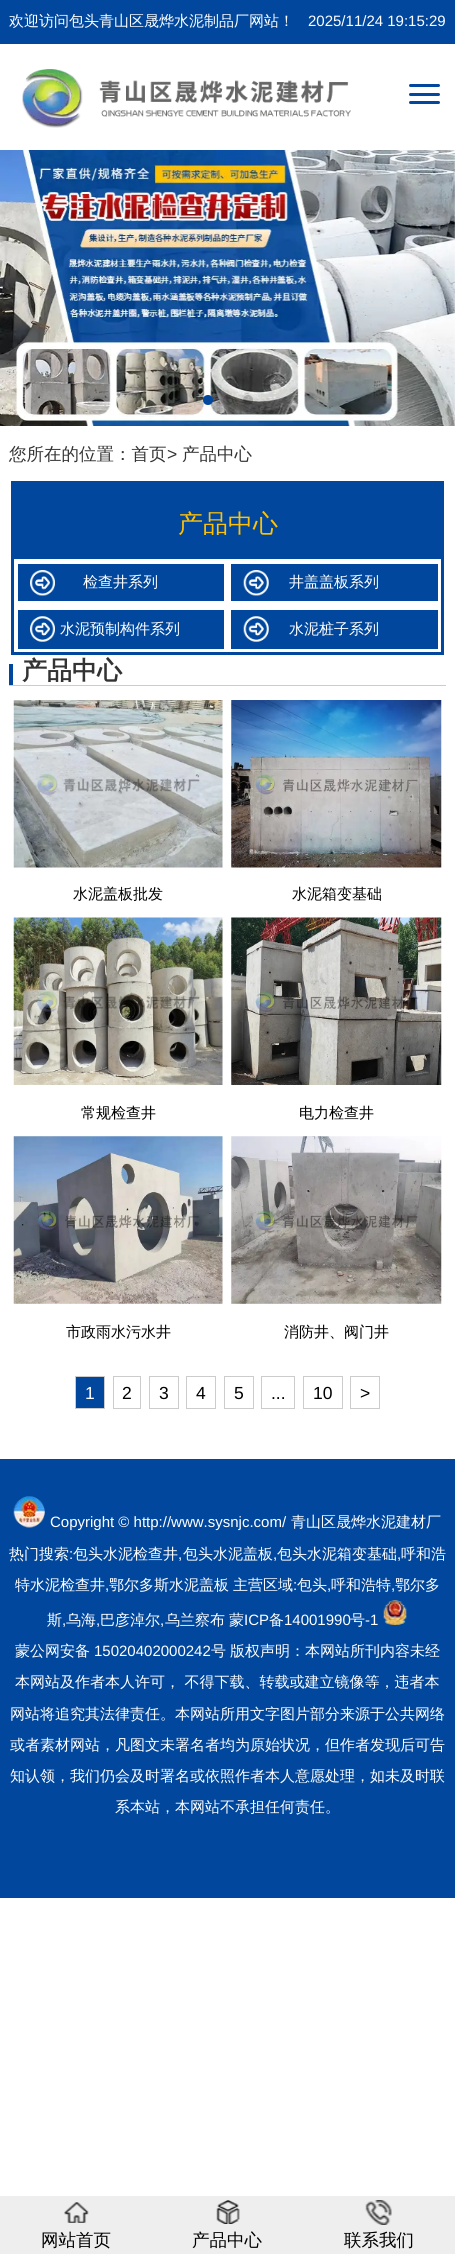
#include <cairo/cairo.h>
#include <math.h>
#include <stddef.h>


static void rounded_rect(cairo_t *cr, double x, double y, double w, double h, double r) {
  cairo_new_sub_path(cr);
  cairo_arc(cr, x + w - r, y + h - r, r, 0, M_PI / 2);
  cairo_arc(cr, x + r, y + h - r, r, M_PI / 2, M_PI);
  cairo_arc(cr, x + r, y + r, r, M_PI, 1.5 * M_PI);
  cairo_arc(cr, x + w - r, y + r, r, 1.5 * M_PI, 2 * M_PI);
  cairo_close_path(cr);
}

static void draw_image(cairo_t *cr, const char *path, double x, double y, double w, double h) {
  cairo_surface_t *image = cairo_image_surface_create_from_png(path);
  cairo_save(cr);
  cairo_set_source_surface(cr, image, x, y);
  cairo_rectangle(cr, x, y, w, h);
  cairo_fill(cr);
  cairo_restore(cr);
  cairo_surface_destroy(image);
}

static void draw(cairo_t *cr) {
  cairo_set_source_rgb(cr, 1, 1, 1);
  cairo_paint(cr);
  cairo_set_source_rgb(cr, 0, 71 / 255.0, 157 / 255.0);
  cairo_rectangle(cr, 0, 0, 455, 44);
  cairo_fill(cr);
  draw_image(cr, "images/1.png", 22, 69, 329, 59);
  rounded_rect(cr, 409, 84, 31, 3, 1.5);
  cairo_fill(cr);
  rounded_rect(cr, 409, 93, 31, 3, 1.5);
  cairo_fill(cr);
  rounded_rect(cr, 409, 101, 31, 3, 1.5);
  cairo_fill(cr);
  draw_image(cr, "images/2.png", 0, 150, 455, 276);
  cairo_arc(cr, 208, 400, 5, 0, 2 * M_PI);
  cairo_fill(cr);
  cairo_set_source_rgba(cr, 0, 0, 0, 0.2);
  cairo_arc(cr, 228, 400, 5, 0, 2 * M_PI);
  cairo_fill(cr);
  cairo_arc(cr, 248, 400, 5, 0, 2 * M_PI);
  cairo_fill(cr);
  cairo_rectangle(cr, 12.5, 482.5, 430, 171);
  cairo_set_source_rgb(cr, 0, 71 / 255.0, 157 / 255.0);
  cairo_set_line_width(cr, 3);
  cairo_stroke(cr);
  cairo_rectangle(cr, 14, 484, 427, 75);
  cairo_fill(cr);
  cairo_rectangle(cr, 18, 564, 206, 37);
  cairo_fill(cr);
  draw_image(cr, "images/3.png", 30, 570, 25, 26);
  cairo_rectangle(cr, 231, 564, 207, 37);
  cairo_fill(cr);
  draw_image(cr, "images/4.png", 243, 570, 26, 26);
  cairo_rectangle(cr, 18, 610, 206, 39);
  cairo_fill(cr);
  draw_image(cr, "images/5.png", 30, 616, 25, 26);
  cairo_rectangle(cr, 231, 610, 207, 39);
  cairo_fill(cr);
  draw_image(cr, "images/6.png", 243, 616, 26, 26);
  cairo_set_source_rgb(cr, 204 / 255.0, 204 / 255.0, 204 / 255.0);
  cairo_rectangle(cr, 9, 685, 437, 1);
  cairo_fill(cr);
  cairo_set_source_rgb(cr, 0, 71 / 255.0, 157 / 255.0);
  cairo_rectangle(cr, 9, 664, 4, 21);
  cairo_fill(cr);
  draw_image(cr, "images/7.png", 13, 700, 210, 168);
  draw_image(cr, "images/8.png", 231, 700, 211, 168);
  draw_image(cr, "images/9.png", 13, 917, 210, 168);
  draw_image(cr, "images/10.png", 231, 917, 211, 168);
  draw_image(cr, "images/11.png", 13, 1136, 210, 168);
  draw_image(cr, "images/12.png", 231, 1136, 211, 168);
  cairo_rectangle(cr, 75.5, 1376.5, 29, 32);
  cairo_fill_preserve(cr);
  cairo_set_source_rgb(cr, 204 / 255.0, 204 / 255.0, 204 / 255.0);
  cairo_set_line_width(cr, 1);
  cairo_stroke(cr);
  cairo_rectangle(cr, 113.5, 1376.5, 27, 32);
  cairo_stroke(cr);
  cairo_rectangle(cr, 149.5, 1376.5, 29, 32);
  cairo_stroke(cr);
  cairo_rectangle(cr, 186.5, 1376.5, 29, 32);
  cairo_stroke(cr);
  cairo_rectangle(cr, 224.5, 1376.5, 29, 32);
  cairo_stroke(cr);
  cairo_rectangle(cr, 261.5, 1376.5, 33, 32);
  cairo_stroke(cr);
  cairo_rectangle(cr, 303.5, 1376.5, 39, 32);
  cairo_stroke(cr);
  cairo_rectangle(cr, 350.5, 1376.5, 29, 32);
  cairo_stroke(cr);
  cairo_set_source_rgb(cr, 0, 71 / 255.0, 157 / 255.0);
  cairo_rectangle(cr, 0, 1459, 455, 439);
  cairo_fill(cr);
  draw_image(cr, "images/13.png", 13, 1496, 32, 32);
  draw_image(cr, "images/14.png", 383, 1600, 24, 25);
  cairo_set_source_rgb(cr, 238 / 255.0, 238 / 255.0, 238 / 255.0);
  cairo_rectangle(cr, 0, 2196, 455, 58);
  cairo_fill(cr);
  draw_image(cr, "images/15.png", 64, 2202, 25, 21);
  draw_image(cr, "images/16.png", 216, 2200, 24, 24);
  draw_image(cr, "images/17.png", 365, 2200, 27, 25);
  cairo_select_font_face(cr, "WenQuanYi Zen Hei Medium", CAIRO_FONT_SLANT_NORMAL, CAIRO_FONT_WEIGHT_NORMAL);
  cairo_set_font_size(cr, 15);
  cairo_set_source_rgb(cr, 1, 1, 1);
  cairo_move_to(cr, 9, 26);
  cairo_show_text(cr, "欢迎访问包头青山区晟烨水泥制品厂网站！");
  cairo_select_font_face(cr, "Liberation Sans", CAIRO_FONT_SLANT_NORMAL, CAIRO_FONT_WEIGHT_NORMAL);
  cairo_move_to(cr, 308, 26);
  cairo_show_text(cr, "2025/11/24 19:15:29");
  cairo_select_font_face(cr, "WenQuanYi Zen Hei Medium", CAIRO_FONT_SLANT_NORMAL, CAIRO_FONT_WEIGHT_NORMAL);
  cairo_set_font_size(cr, 17.5);
  cairo_set_source_rgb(cr, 51 / 255.0, 51 / 255.0, 51 / 255.0);
  cairo_move_to(cr, 9, 460);
  cairo_show_text(cr, "您所在的位置：首页");
  cairo_select_font_face(cr, "Liberation Sans", CAIRO_FONT_SLANT_NORMAL, CAIRO_FONT_WEIGHT_NORMAL);
  cairo_move_to(cr, 167, 460);
  cairo_show_text(cr, ">");
  cairo_select_font_face(cr, "WenQuanYi Zen Hei Medium", CAIRO_FONT_SLANT_NORMAL, CAIRO_FONT_WEIGHT_NORMAL);
  cairo_move_to(cr, 182, 460);
  cairo_show_text(cr, "产品中心");
  cairo_set_font_size(cr, 25);
  cairo_set_source_rgb(cr, 1, 193 / 255.0, 5 / 255.0);
  cairo_move_to(cr, 178, 532);
  cairo_show_text(cr, "产品中心");
  cairo_set_font_size(cr, 15);
  cairo_set_source_rgb(cr, 1, 1, 1);
  cairo_move_to(cr, 83, 587);
  cairo_show_text(cr, "检查井系列");
  cairo_move_to(cr, 289, 587);
  cairo_show_text(cr, "井盖盖板系列");
  cairo_move_to(cr, 60, 634);
  cairo_show_text(cr, "水泥预制构件系列");
  cairo_move_to(cr, 289, 634);
  cairo_show_text(cr, "水泥桩子系列");
  cairo_select_font_face(cr, "WenQuanYi Zen Hei", CAIRO_FONT_SLANT_NORMAL, CAIRO_FONT_WEIGHT_BOLD);
  cairo_set_font_size(cr, 25);
  cairo_set_source_rgb(cr, 51 / 255.0, 51 / 255.0, 51 / 255.0);
  cairo_move_to(cr, 22, 679);
  cairo_show_text(cr, "产品中心");
  cairo_select_font_face(cr, "WenQuanYi Zen Hei Medium", CAIRO_FONT_SLANT_NORMAL, CAIRO_FONT_WEIGHT_NORMAL);
  cairo_set_font_size(cr, 15);
  cairo_set_source_rgb(cr, 0, 0, 0);
  cairo_move_to(cr, 73, 899);
  cairo_show_text(cr, "水泥盖板批发");
  cairo_move_to(cr, 292, 899);
  cairo_show_text(cr, "水泥箱变基础");
  cairo_move_to(cr, 81, 1118);
  cairo_show_text(cr, "常规检查井");
  cairo_move_to(cr, 299, 1118);
  cairo_show_text(cr, "电力检查井");
  cairo_move_to(cr, 66, 1337);
  cairo_show_text(cr, "市政雨水污水井");
  cairo_move_to(cr, 284, 1337);
  cairo_show_text(cr, "消防井、阀门井");
  cairo_select_font_face(cr, "Liberation Sans", CAIRO_FONT_SLANT_NORMAL, CAIRO_FONT_WEIGHT_NORMAL);
  cairo_set_font_size(cr, 17.5);
  cairo_set_source_rgb(cr, 1, 1, 1);
  cairo_move_to(cr, 85, 1399);
  cairo_show_text(cr, "1");
  cairo_set_source_rgb(cr, 0, 0, 0);
  cairo_move_to(cr, 122, 1399);
  cairo_show_text(cr, "2");
  cairo_move_to(cr, 159, 1399);
  cairo_show_text(cr, "3");
  cairo_move_to(cr, 196, 1399);
  cairo_show_text(cr, "4");
  cairo_move_to(cr, 234, 1399);
  cairo_show_text(cr, "5");
  cairo_move_to(cr, 271, 1399);
  cairo_show_text(cr, "...");
  cairo_move_to(cr, 313, 1399);
  cairo_show_text(cr, "10");
  cairo_move_to(cr, 360, 1399);
  cairo_show_text(cr, ">");
  cairo_set_font_size(cr, 15);
  cairo_set_source_rgb(cr, 1, 1, 1);
  cairo_move_to(cr, 50, 1527);
  cairo_show_text(cr, "Copyright © http://www.sysnjc.com/");
  cairo_select_font_face(cr, "WenQuanYi Zen Hei Medium", CAIRO_FONT_SLANT_NORMAL, CAIRO_FONT_WEIGHT_NORMAL);
  cairo_move_to(cr, 291, 1527);
  cairo_show_text(cr, "青山区晟烨水泥建材厂");
  cairo_move_to(cr, 9, 1559);
  cairo_show_text(cr, "热门搜索");
  cairo_select_font_face(cr, "Liberation Sans", CAIRO_FONT_SLANT_NORMAL, CAIRO_FONT_WEIGHT_NORMAL);
  cairo_move_to(cr, 69, 1559);
  cairo_show_text(cr, ":");
  cairo_select_font_face(cr, "WenQuanYi Zen Hei Medium", CAIRO_FONT_SLANT_NORMAL, CAIRO_FONT_WEIGHT_NORMAL);
  cairo_move_to(cr, 73, 1559);
  cairo_show_text(cr, "包头水泥检查井");
  cairo_select_font_face(cr, "Liberation Sans", CAIRO_FONT_SLANT_NORMAL, CAIRO_FONT_WEIGHT_NORMAL);
  cairo_move_to(cr, 178, 1559);
  cairo_show_text(cr, ",");
  cairo_select_font_face(cr, "WenQuanYi Zen Hei Medium", CAIRO_FONT_SLANT_NORMAL, CAIRO_FONT_WEIGHT_NORMAL);
  cairo_move_to(cr, 183, 1559);
  cairo_show_text(cr, "包头水泥盖板");
  cairo_select_font_face(cr, "Liberation Sans", CAIRO_FONT_SLANT_NORMAL, CAIRO_FONT_WEIGHT_NORMAL);
  cairo_move_to(cr, 273, 1559);
  cairo_show_text(cr, ",");
  cairo_select_font_face(cr, "WenQuanYi Zen Hei Medium", CAIRO_FONT_SLANT_NORMAL, CAIRO_FONT_WEIGHT_NORMAL);
  cairo_move_to(cr, 277, 1559);
  cairo_show_text(cr, "包头水泥箱变基础");
  cairo_select_font_face(cr, "Liberation Sans", CAIRO_FONT_SLANT_NORMAL, CAIRO_FONT_WEIGHT_NORMAL);
  cairo_move_to(cr, 397, 1559);
  cairo_show_text(cr, ",");
  cairo_select_font_face(cr, "WenQuanYi Zen Hei Medium", CAIRO_FONT_SLANT_NORMAL, CAIRO_FONT_WEIGHT_NORMAL);
  cairo_move_to(cr, 401, 1559);
  cairo_show_text(cr, "呼和浩");
  cairo_move_to(cr, 15, 1590);
  cairo_show_text(cr, "特水泥检查井");
  cairo_select_font_face(cr, "Liberation Sans", CAIRO_FONT_SLANT_NORMAL, CAIRO_FONT_WEIGHT_NORMAL);
  cairo_move_to(cr, 105, 1590);
  cairo_show_text(cr, ",");
  cairo_select_font_face(cr, "WenQuanYi Zen Hei Medium", CAIRO_FONT_SLANT_NORMAL, CAIRO_FONT_WEIGHT_NORMAL);
  cairo_move_to(cr, 109, 1590);
  cairo_show_text(cr, "鄂尔多斯水泥盖板");
  cairo_move_to(cr, 233, 1590);
  cairo_show_text(cr, "主营区域");
  cairo_select_font_face(cr, "Liberation Sans", CAIRO_FONT_SLANT_NORMAL, CAIRO_FONT_WEIGHT_NORMAL);
  cairo_move_to(cr, 293, 1590);
  cairo_show_text(cr, ":");
  cairo_select_font_face(cr, "WenQuanYi Zen Hei Medium", CAIRO_FONT_SLANT_NORMAL, CAIRO_FONT_WEIGHT_NORMAL);
  cairo_move_to(cr, 297, 1590);
  cairo_show_text(cr, "包头");
  cairo_select_font_face(cr, "Liberation Sans", CAIRO_FONT_SLANT_NORMAL, CAIRO_FONT_WEIGHT_NORMAL);
  cairo_move_to(cr, 327, 1590);
  cairo_show_text(cr, ",");
  cairo_select_font_face(cr, "WenQuanYi Zen Hei Medium", CAIRO_FONT_SLANT_NORMAL, CAIRO_FONT_WEIGHT_NORMAL);
  cairo_move_to(cr, 331, 1590);
  cairo_show_text(cr, "呼和浩特");
  cairo_select_font_face(cr, "Liberation Sans", CAIRO_FONT_SLANT_NORMAL, CAIRO_FONT_WEIGHT_NORMAL);
  cairo_move_to(cr, 391, 1590);
  cairo_show_text(cr, ",");
  cairo_select_font_face(cr, "WenQuanYi Zen Hei Medium", CAIRO_FONT_SLANT_NORMAL, CAIRO_FONT_WEIGHT_NORMAL);
  cairo_move_to(cr, 395, 1590);
  cairo_show_text(cr, "鄂尔多");
  cairo_move_to(cr, 47, 1625);
  cairo_show_text(cr, "斯");
  cairo_select_font_face(cr, "Liberation Sans", CAIRO_FONT_SLANT_NORMAL, CAIRO_FONT_WEIGHT_NORMAL);
  cairo_move_to(cr, 62, 1625);
  cairo_show_text(cr, ",");
  cairo_select_font_face(cr, "WenQuanYi Zen Hei Medium", CAIRO_FONT_SLANT_NORMAL, CAIRO_FONT_WEIGHT_NORMAL);
  cairo_move_to(cr, 66, 1625);
  cairo_show_text(cr, "乌海");
  cairo_select_font_face(cr, "Liberation Sans", CAIRO_FONT_SLANT_NORMAL, CAIRO_FONT_WEIGHT_NORMAL);
  cairo_move_to(cr, 96, 1625);
  cairo_show_text(cr, ",");
  cairo_select_font_face(cr, "WenQuanYi Zen Hei Medium", CAIRO_FONT_SLANT_NORMAL, CAIRO_FONT_WEIGHT_NORMAL);
  cairo_move_to(cr, 100, 1625);
  cairo_show_text(cr, "巴彦淖尔");
  cairo_select_font_face(cr, "Liberation Sans", CAIRO_FONT_SLANT_NORMAL, CAIRO_FONT_WEIGHT_NORMAL);
  cairo_move_to(cr, 160, 1625);
  cairo_show_text(cr, ",");
  cairo_select_font_face(cr, "WenQuanYi Zen Hei Medium", CAIRO_FONT_SLANT_NORMAL, CAIRO_FONT_WEIGHT_NORMAL);
  cairo_move_to(cr, 165, 1625);
  cairo_show_text(cr, "乌兰察布");
  cairo_move_to(cr, 229, 1625);
  cairo_show_text(cr, "蒙");
  cairo_select_font_face(cr, "Liberation Sans", CAIRO_FONT_SLANT_NORMAL, CAIRO_FONT_WEIGHT_NORMAL);
  cairo_move_to(cr, 244, 1625);
  cairo_show_text(cr, "ICP");
  cairo_select_font_face(cr, "WenQuanYi Zen Hei Medium", CAIRO_FONT_SLANT_NORMAL, CAIRO_FONT_WEIGHT_NORMAL);
  cairo_move_to(cr, 269, 1625);
  cairo_show_text(cr, "备");
  cairo_select_font_face(cr, "Liberation Sans", CAIRO_FONT_SLANT_NORMAL, CAIRO_FONT_WEIGHT_NORMAL);
  cairo_move_to(cr, 284, 1625);
  cairo_show_text(cr, "14001990");
  cairo_select_font_face(cr, "WenQuanYi Zen Hei Medium", CAIRO_FONT_SLANT_NORMAL, CAIRO_FONT_WEIGHT_NORMAL);
  cairo_move_to(cr, 350, 1625);
  cairo_show_text(cr, "号");
  cairo_select_font_face(cr, "Liberation Sans", CAIRO_FONT_SLANT_NORMAL, CAIRO_FONT_WEIGHT_NORMAL);
  cairo_move_to(cr, 365, 1625);
  cairo_show_text(cr, "-1");
  cairo_select_font_face(cr, "WenQuanYi Zen Hei Medium", CAIRO_FONT_SLANT_NORMAL, CAIRO_FONT_WEIGHT_NORMAL);
  cairo_move_to(cr, 15, 1656);
  cairo_show_text(cr, "蒙公网安备");
  cairo_select_font_face(cr, "Liberation Sans", CAIRO_FONT_SLANT_NORMAL, CAIRO_FONT_WEIGHT_NORMAL);
  cairo_move_to(cr, 94, 1656);
  cairo_show_text(cr, "15020402000242");
  cairo_select_font_face(cr, "WenQuanYi Zen Hei Medium", CAIRO_FONT_SLANT_NORMAL, CAIRO_FONT_WEIGHT_NORMAL);
  cairo_move_to(cr, 211, 1656);
  cairo_show_text(cr, "号");
  cairo_move_to(cr, 230, 1656);
  cairo_show_text(cr, "版权声明：本网站所刊内容未经");
  cairo_move_to(cr, 15, 1687);
  cairo_show_text(cr, "本网站及作者本人许可， 不得下载、转载或建立镜像等，违者本");
  cairo_move_to(cr, 10, 1719);
  cairo_show_text(cr, "网站将追究其法律责任。本网站所用文字图片部分来源于公共网络");
  cairo_move_to(cr, 10, 1750);
  cairo_show_text(cr, "或者素材网站，凡图文未署名者均为原始状况，但作者发现后可告");
  cairo_move_to(cr, 10, 1781);
  cairo_show_text(cr, "知认领，我们仍会及时署名或依照作者本人意愿处理，如未及时联");
  cairo_move_to(cr, 115, 1812);
  cairo_show_text(cr, "系本站，本网站不承担任何责任。");
  cairo_set_font_size(cr, 17.5);
  cairo_set_source_rgb(cr, 0, 0, 0);
  cairo_move_to(cr, 41, 2246);
  cairo_show_text(cr, "网站首页");
  cairo_move_to(cr, 192, 2246);
  cairo_show_text(cr, "产品中心");
  cairo_move_to(cr, 344, 2246);
  cairo_show_text(cr, "联系我们");
}

int main(void) {
  cairo_surface_t *surface = cairo_image_surface_create(CAIRO_FORMAT_RGB24, 455, 2254);
  cairo_t *cr = cairo_create(surface);
  cairo_font_options_t *options = cairo_font_options_create();
  cairo_font_options_set_hint_metrics(options, CAIRO_HINT_METRICS_OFF);
  cairo_font_options_set_hint_style(options, CAIRO_HINT_STYLE_NONE);
  cairo_set_font_options(cr, options);
  cairo_set_miter_limit(cr, 4);
  draw(cr);
  cairo_surface_write_to_png(surface, "out.png");
  cairo_font_options_destroy(options);
  cairo_destroy(cr);
  cairo_surface_destroy(surface);
  return 0;
}
